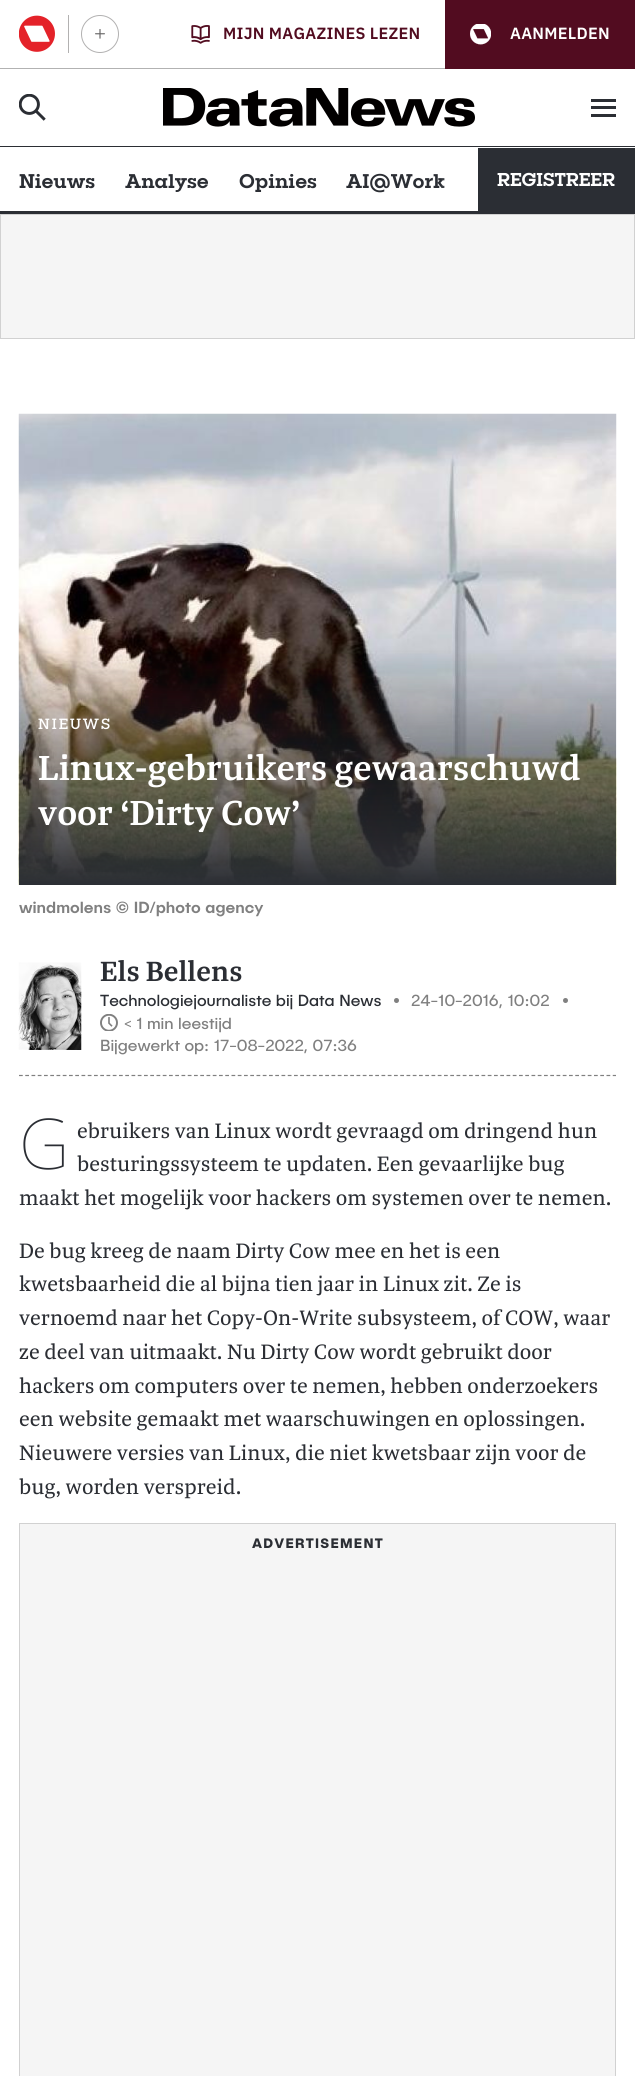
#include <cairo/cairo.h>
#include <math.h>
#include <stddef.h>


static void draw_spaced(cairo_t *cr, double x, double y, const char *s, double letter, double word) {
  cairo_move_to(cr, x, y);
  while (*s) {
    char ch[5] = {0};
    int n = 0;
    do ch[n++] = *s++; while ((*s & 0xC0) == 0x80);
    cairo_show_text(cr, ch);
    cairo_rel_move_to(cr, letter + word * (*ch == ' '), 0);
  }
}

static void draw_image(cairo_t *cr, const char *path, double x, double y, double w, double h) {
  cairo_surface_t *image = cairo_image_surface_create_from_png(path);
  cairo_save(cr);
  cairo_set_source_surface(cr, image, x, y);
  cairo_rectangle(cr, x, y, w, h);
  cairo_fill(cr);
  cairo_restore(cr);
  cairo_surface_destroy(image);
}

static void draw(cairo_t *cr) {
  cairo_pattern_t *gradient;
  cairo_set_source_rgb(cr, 1, 1, 1);
  cairo_paint(cr);
  cairo_set_source_rgb(cr, 178 / 255.0, 178 / 255.0, 178 / 255.0);
  cairo_rectangle(cr, 0, 68, 445, 1);
  cairo_fill(cr);
  cairo_set_source_rgb(cr, 178 / 255.0, 177 / 255.0, 177 / 255.0);
  cairo_rectangle(cr, 68, 15, 1, 38);
  cairo_fill(cr);
  draw_image(cr, "images/1.png", 19, 15, 36, 37);
  cairo_arc(cr, 100, 34, 18.5, 0, 2 * M_PI);
  cairo_set_line_width(cr, 1);
  cairo_stroke(cr);
  draw_image(cr, "images/2.png", 95, 29, 10, 10);
  draw_image(cr, "images/3.png", 191, 25, 19, 19);
  cairo_set_source_rgb(cr, 82 / 255.0, 12 / 255.0, 32 / 255.0);
  cairo_rectangle(cr, 445, 0, 190, 69);
  cairo_fill(cr);
  draw_image(cr, "images/4.png", 470, 24, 21, 21);
  draw_image(cr, "images/5.png", 19, 94, 27, 27);
  draw_image(cr, "images/6.png", 163, 88, 312, 39);
  cairo_set_source_rgb(cr, 43 / 255.0, 46 / 255.0, 52 / 255.0);
  cairo_rectangle(cr, 591, 99, 25, 3);
  cairo_fill(cr);
  cairo_rectangle(cr, 591, 106, 25, 3);
  cairo_fill(cr);
  cairo_rectangle(cr, 591, 114, 25, 3);
  cairo_fill(cr);
  cairo_rectangle(cr, 0, 146, 635, 1);
  cairo_fill(cr);
  cairo_rectangle(cr, 0, 211, 635, 3);
  cairo_fill(cr);
  cairo_rectangle(cr, 478, 148, 157, 63);
  cairo_fill(cr);
  cairo_set_source_rgb(cr, 245 / 255.0, 245 / 255.0, 245 / 255.0);
  cairo_rectangle(cr, 0.5, 214.5, 634, 124);
  cairo_fill_preserve(cr);
  cairo_set_source_rgb(cr, 209 / 255.0, 209 / 255.0, 209 / 255.0);
  cairo_stroke(cr);
  draw_image(cr, "images/7.png", 18, 413, 599, 472);
  cairo_new_path(cr);
  cairo_move_to(cr, 19, 1075.5);
  cairo_line_to(cr, 616, 1075.5);
  cairo_set_source_rgb(cr, 128 / 255.0, 128 / 255.0, 128 / 255.0);
  cairo_set_line_width(cr, 1.2);
  cairo_set_dash(cr, (double[]){3.75, 2.5}, 2, 0);
  cairo_stroke(cr);
  draw_image(cr, "images/8.png", 18, 962, 64, 88);
  cairo_arc(cr, 396.5, 1000.5, 2.5, 0, 2 * M_PI);
  cairo_fill(cr);
  cairo_arc(cr, 565.5, 1000.5, 2.5, 0, 2 * M_PI);
  cairo_fill(cr);
  draw_image(cr, "images/9.png", 100, 1014, 18, 17);
  cairo_set_source_rgb(cr, 245 / 255.0, 245 / 255.0, 245 / 255.0);
  cairo_rectangle(cr, 19.5, 1523.5, 596, 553);
  cairo_fill_preserve(cr);
  cairo_set_source_rgb(cr, 209 / 255.0, 209 / 255.0, 209 / 255.0);
  cairo_set_line_width(cr, 1);
  cairo_set_dash(cr, NULL, 0, 0);
  cairo_stroke(cr);
  cairo_select_font_face(cr, "IBM Plex Sans SemiBold", CAIRO_FONT_SLANT_NORMAL, CAIRO_FONT_WEIGHT_NORMAL);
  cairo_set_font_size(cr, 16.25);
  cairo_set_source_rgb(cr, 82 / 255.0, 12 / 255.0, 32 / 255.0);
  draw_spaced(cr, 223, 39, "MIJN MAGAZINES LEZEN", 0.25, 0);
  cairo_set_source_rgb(cr, 1, 1, 1);
  draw_spaced(cr, 510, 39, "AANMELDEN", 0.25, 0);
  cairo_select_font_face(cr, "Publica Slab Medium", CAIRO_FONT_SLANT_NORMAL, CAIRO_FONT_WEIGHT_NORMAL);
  cairo_set_font_size(cr, 20);
  cairo_set_source_rgb(cr, 43 / 255.0, 46 / 255.0, 52 / 255.0);
  cairo_move_to(cr, 19, 188);
  cairo_show_text(cr, "Nieuws");
  cairo_move_to(cr, 125, 188);
  cairo_show_text(cr, "Analyse");
  cairo_move_to(cr, 239, 188);
  cairo_show_text(cr, "Opinies");
  cairo_move_to(cr, 346, 188);
  cairo_show_text(cr, "AI@Work");
  gradient = cairo_pattern_create_linear(440, 179, 478, 179);
  cairo_pattern_add_color_stop_rgba(gradient, 0, 1, 1, 1, 0);
  cairo_pattern_add_color_stop_rgba(gradient, 1, 1, 1, 1, 1);
  cairo_set_source(cr, gradient);
  cairo_pattern_destroy(gradient);
  cairo_rectangle(cr, 441, 178, 4, 10);
  cairo_fill(cr);
  cairo_set_font_size(cr, 18.75);
  cairo_set_source_rgb(cr, 1, 1, 1);
  cairo_move_to(cr, 497, 186);
  cairo_show_text(cr, "REGISTREER");
  cairo_select_font_face(cr, "Publica Slab", CAIRO_FONT_SLANT_NORMAL, CAIRO_FONT_WEIGHT_NORMAL);
  cairo_set_font_size(cr, 15);
  draw_spaced(cr, 38, 729, "NIEUWS", 2, 0);
  cairo_select_font_face(cr, "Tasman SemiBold", CAIRO_FONT_SLANT_NORMAL, CAIRO_FONT_WEIGHT_NORMAL);
  cairo_set_font_size(cr, 37.5);
  cairo_move_to(cr, 38, 780);
  cairo_show_text(cr, "Linux-gebruikers gewaarschuwd");
  cairo_move_to(cr, 38, 825);
  cairo_show_text(cr, "voor ‘Dirty Cow’");
  cairo_select_font_face(cr, "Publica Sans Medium", CAIRO_FONT_SLANT_NORMAL, CAIRO_FONT_WEIGHT_NORMAL);
  cairo_set_font_size(cr, 16.25);
  cairo_set_source_rgb(cr, 128 / 255.0, 128 / 255.0, 128 / 255.0);
  cairo_move_to(cr, 19, 913);
  cairo_show_text(cr, "windmolens © ID/photo agency");
  cairo_select_font_face(cr, "Tasman SemiBold", CAIRO_FONT_SLANT_NORMAL, CAIRO_FONT_WEIGHT_NORMAL);
  cairo_set_font_size(cr, 30);
  cairo_set_source_rgb(cr, 43 / 255.0, 46 / 255.0, 52 / 255.0);
  cairo_move_to(cr, 100, 981);
  cairo_show_text(cr, "Els Bellens");
  cairo_select_font_face(cr, "Publica Sans", CAIRO_FONT_SLANT_NORMAL, CAIRO_FONT_WEIGHT_NORMAL);
  cairo_set_font_size(cr, 16.25);
  cairo_move_to(cr, 100, 1006);
  cairo_show_text(cr, "Technologiejournaliste bij Data News");
  cairo_set_source_rgb(cr, 128 / 255.0, 128 / 255.0, 128 / 255.0);
  cairo_move_to(cr, 411, 1006);
  cairo_show_text(cr, "24-10-2016, 10:02");
  cairo_move_to(cr, 124, 1029);
  cairo_show_text(cr, "< 1 min leestijd");
  cairo_move_to(cr, 100, 1051);
  cairo_show_text(cr, "Bijgewerkt op: 17-08-2022, 07:36");
  cairo_select_font_face(cr, "Noto Sans Thin", CAIRO_FONT_SLANT_NORMAL, CAIRO_FONT_WEIGHT_NORMAL);
  cairo_set_font_size(cr, 70);
  cairo_set_source_rgb(cr, 43 / 255.0, 46 / 255.0, 52 / 255.0);
  cairo_move_to(cr, 19, 1169);
  cairo_show_text(cr, "G");
  cairo_select_font_face(cr, "Tasman", CAIRO_FONT_SLANT_NORMAL, CAIRO_FONT_WEIGHT_NORMAL);
  cairo_set_font_size(cr, 22.5);
  cairo_move_to(cr, 77, 1138);
  cairo_show_text(cr, "ebruikers van Linux wordt gevraagd om dringend hun");
  cairo_move_to(cr, 77, 1171);
  cairo_show_text(cr, "besturingssysteem te updaten. Een gevaarlijke bug");
  cairo_move_to(cr, 19, 1205);
  cairo_show_text(cr, "maakt het mogelijk voor hackers om systemen over te nemen.");
  cairo_move_to(cr, 19, 1258);
  cairo_show_text(cr, "De bug kreeg de naam Dirty Cow mee en het is een");
  cairo_move_to(cr, 19, 1291);
  cairo_show_text(cr, "kwetsbaarheid die al bijna tien jaar in Linux zit. Ze is");
  cairo_move_to(cr, 19, 1325);
  cairo_show_text(cr, "vernoemd naar het Copy-On-Write subsysteem, of COW, waar");
  cairo_move_to(cr, 19, 1359);
  cairo_show_text(cr, "ze deel van uitmaakt. Nu Dirty Cow wordt gebruikt door");
  cairo_move_to(cr, 19, 1393);
  cairo_show_text(cr, "hackers om computers over te nemen, hebben onderzoekers");
  cairo_move_to(cr, 19, 1426);
  cairo_show_text(cr, "een website gemaakt met waarschuwingen en oplossingen.");
  cairo_move_to(cr, 19, 1460);
  cairo_show_text(cr, "Nieuwere versies van Linux, die niet kwetsbaar zijn voor de");
  cairo_move_to(cr, 19, 1494);
  cairo_show_text(cr, "bug, worden verspreid.");
  cairo_select_font_face(cr, "Publica Sans", CAIRO_FONT_SLANT_NORMAL, CAIRO_FONT_WEIGHT_BOLD);
  cairo_set_font_size(cr, 13.75);
  draw_spaced(cr, 252, 1548, "ADVERTISEMENT", 1.25, 0);
}

int main(void) {
  cairo_surface_t *surface = cairo_image_surface_create(CAIRO_FORMAT_RGB24, 635, 2076);
  cairo_t *cr = cairo_create(surface);
  cairo_font_options_t *options = cairo_font_options_create();
  cairo_font_options_set_hint_metrics(options, CAIRO_HINT_METRICS_OFF);
  cairo_font_options_set_hint_style(options, CAIRO_HINT_STYLE_NONE);
  cairo_set_font_options(cr, options);
  cairo_set_miter_limit(cr, 4);
  draw(cr);
  cairo_surface_write_to_png(surface, "out.png");
  cairo_font_options_destroy(options);
  cairo_destroy(cr);
  cairo_surface_destroy(surface);
  return 0;
}
